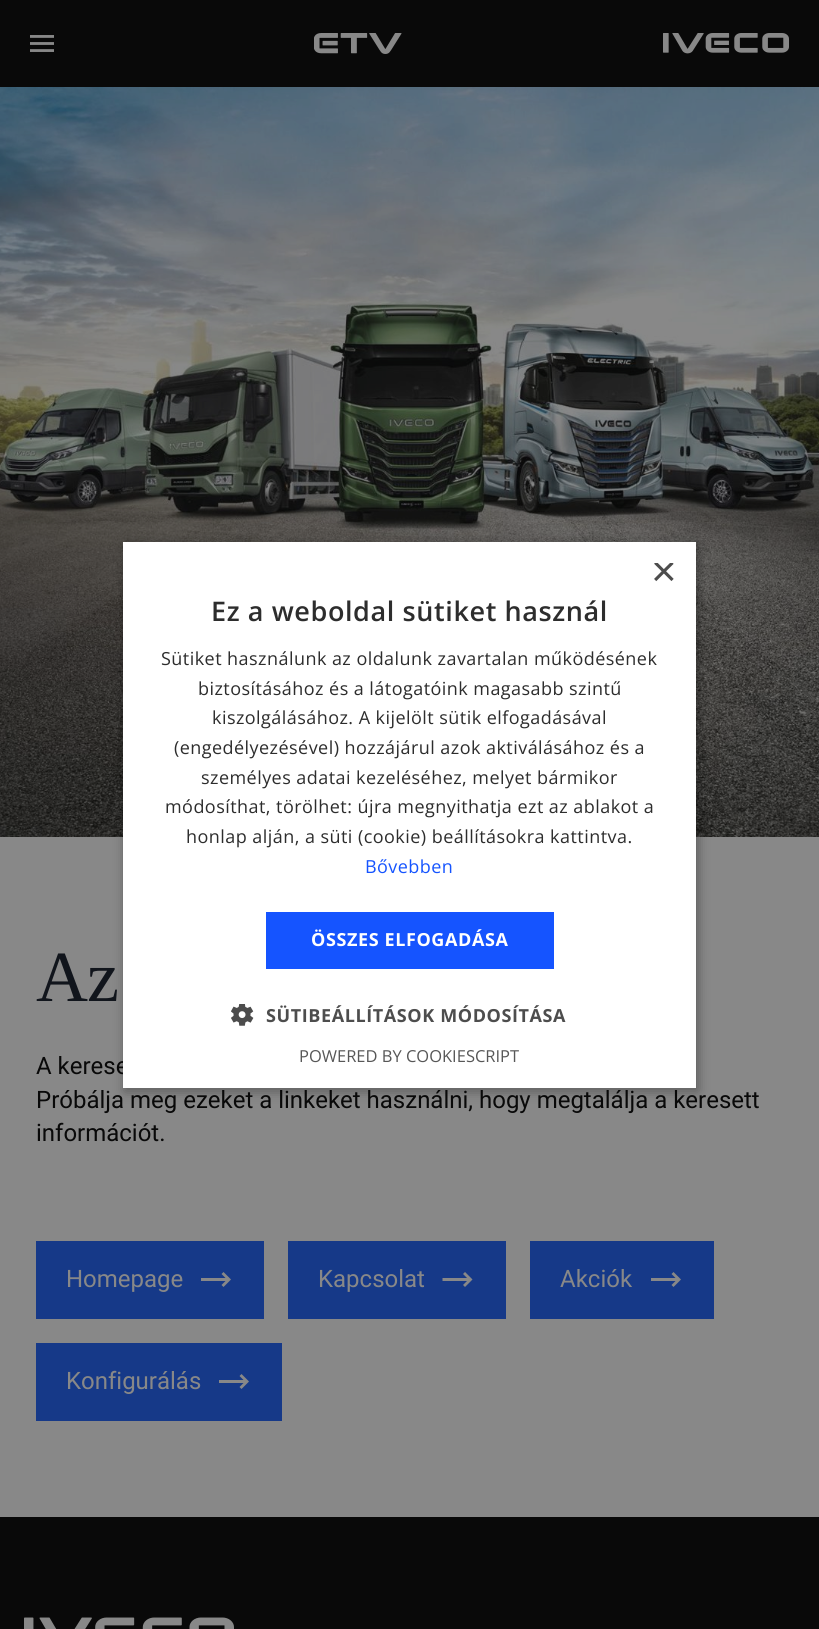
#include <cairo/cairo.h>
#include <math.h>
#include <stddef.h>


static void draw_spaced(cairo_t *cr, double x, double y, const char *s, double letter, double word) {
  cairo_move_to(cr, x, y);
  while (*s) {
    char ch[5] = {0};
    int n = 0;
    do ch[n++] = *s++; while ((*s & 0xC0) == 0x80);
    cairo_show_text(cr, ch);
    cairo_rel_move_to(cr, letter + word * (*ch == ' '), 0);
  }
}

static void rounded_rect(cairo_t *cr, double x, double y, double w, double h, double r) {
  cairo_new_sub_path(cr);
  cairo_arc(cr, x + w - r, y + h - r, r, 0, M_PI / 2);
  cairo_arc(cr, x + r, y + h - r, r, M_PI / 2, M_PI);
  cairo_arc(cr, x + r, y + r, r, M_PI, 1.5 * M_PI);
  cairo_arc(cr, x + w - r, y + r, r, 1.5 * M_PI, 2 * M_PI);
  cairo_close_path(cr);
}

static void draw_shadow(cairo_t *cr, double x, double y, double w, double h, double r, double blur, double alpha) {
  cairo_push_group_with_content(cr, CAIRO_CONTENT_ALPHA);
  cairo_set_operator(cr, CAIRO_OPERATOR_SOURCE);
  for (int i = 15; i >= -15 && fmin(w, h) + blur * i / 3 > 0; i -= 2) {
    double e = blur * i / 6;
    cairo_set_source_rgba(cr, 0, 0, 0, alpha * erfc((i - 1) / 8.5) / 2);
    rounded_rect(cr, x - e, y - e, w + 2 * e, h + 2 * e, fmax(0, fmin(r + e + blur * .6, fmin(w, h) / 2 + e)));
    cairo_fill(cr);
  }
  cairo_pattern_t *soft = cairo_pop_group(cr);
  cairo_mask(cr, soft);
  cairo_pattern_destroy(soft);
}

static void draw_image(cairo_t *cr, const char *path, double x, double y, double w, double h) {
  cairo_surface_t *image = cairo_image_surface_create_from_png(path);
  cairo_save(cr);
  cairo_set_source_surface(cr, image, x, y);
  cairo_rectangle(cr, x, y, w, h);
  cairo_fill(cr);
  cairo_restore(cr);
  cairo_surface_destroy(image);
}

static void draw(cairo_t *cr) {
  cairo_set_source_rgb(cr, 1, 1, 1);
  cairo_paint(cr);
  cairo_set_source_rgb(cr, 9 / 255.0, 9 / 255.0, 9 / 255.0);
  cairo_rectangle(cr, 0, 0, 819, 87);
  cairo_fill(cr);
  draw_image(cr, "images/1.png", 30, 35, 24, 17);
  draw_image(cr, "images/2.png", 314, 33, 88, 21);
  draw_image(cr, "images/3.png", 663, 33, 126, 21);
  draw_image(cr, "images/5.png", 0, 87, 819, 750);
  cairo_set_source_rgb(cr, 136 / 255.0, 136 / 255.0, 136 / 255.0);
  cairo_rectangle(cr, 0, 837, 819, 680);
  cairo_fill(cr);
  cairo_set_source_rgb(cr, 0, 0, 0);
  draw_shadow(cr, 125, 545, 573, 546, 0, 6, 0.35);
  cairo_set_source_rgb(cr, 22 / 255.0, 57 / 255.0, 136 / 255.0);
  cairo_rectangle(cr, 36, 1241, 228, 78);
  cairo_fill(cr);
  cairo_set_source_rgb(cr, 136 / 255.0, 136 / 255.0, 136 / 255.0);
  cairo_new_path(cr);
  cairo_move_to(cr, 225.5, 1281);
  cairo_line_to(cr, 221.5, 1285);
  cairo_line_to(cr, 223.5, 1287);
  cairo_line_to(cr, 231, 1279.5);
  cairo_line_to(cr, 223.5, 1272);
  cairo_line_to(cr, 221.5, 1274);
  cairo_line_to(cr, 225.5, 1278);
  cairo_line_to(cr, 201, 1278);
  cairo_line_to(cr, 201, 1281);
  cairo_close_path(cr);
  cairo_fill(cr);
  cairo_set_source_rgb(cr, 22 / 255.0, 57 / 255.0, 136 / 255.0);
  cairo_rectangle(cr, 288, 1241, 218, 78);
  cairo_fill(cr);
  cairo_set_source_rgb(cr, 136 / 255.0, 136 / 255.0, 136 / 255.0);
  cairo_new_path(cr);
  cairo_move_to(cr, 467, 1281);
  cairo_line_to(cr, 463, 1285);
  cairo_line_to(cr, 465, 1287);
  cairo_line_to(cr, 472.5, 1279.5);
  cairo_line_to(cr, 465, 1272);
  cairo_line_to(cr, 463, 1274);
  cairo_line_to(cr, 467, 1278);
  cairo_line_to(cr, 442.5, 1278);
  cairo_line_to(cr, 442.5, 1281);
  cairo_close_path(cr);
  cairo_fill(cr);
  cairo_set_source_rgb(cr, 22 / 255.0, 57 / 255.0, 136 / 255.0);
  cairo_rectangle(cr, 530, 1241, 184, 78);
  cairo_fill(cr);
  cairo_set_source_rgb(cr, 136 / 255.0, 136 / 255.0, 136 / 255.0);
  cairo_new_path(cr);
  cairo_move_to(cr, 675.5, 1281);
  cairo_line_to(cr, 671.5, 1285);
  cairo_line_to(cr, 673.5, 1287);
  cairo_line_to(cr, 681, 1279.5);
  cairo_line_to(cr, 673.5, 1272);
  cairo_line_to(cr, 671.5, 1274);
  cairo_line_to(cr, 675.5, 1278);
  cairo_line_to(cr, 651, 1278);
  cairo_line_to(cr, 651, 1281);
  cairo_close_path(cr);
  cairo_fill(cr);
  cairo_set_source_rgb(cr, 22 / 255.0, 57 / 255.0, 136 / 255.0);
  cairo_rectangle(cr, 36, 1343, 246, 78);
  cairo_fill(cr);
  cairo_set_source_rgb(cr, 136 / 255.0, 136 / 255.0, 136 / 255.0);
  cairo_new_path(cr);
  cairo_move_to(cr, 243.5, 1383);
  cairo_line_to(cr, 239.5, 1387);
  cairo_line_to(cr, 241.5, 1389);
  cairo_line_to(cr, 249, 1381.5);
  cairo_line_to(cr, 241.5, 1374);
  cairo_line_to(cr, 239.5, 1376);
  cairo_line_to(cr, 243.5, 1380);
  cairo_line_to(cr, 219, 1380);
  cairo_line_to(cr, 219, 1383);
  cairo_close_path(cr);
  cairo_fill(cr);
  cairo_set_source_rgb(cr, 9 / 255.0, 9 / 255.0, 9 / 255.0);
  cairo_rectangle(cr, 0, 1517, 819, 112);
  cairo_fill(cr);
  draw_image(cr, "images/6.png", 24, 1617, 210, 12);
  cairo_select_font_face(cr, "Liberation Serif", CAIRO_FONT_SLANT_NORMAL, CAIRO_FONT_WEIGHT_NORMAL);
  cairo_set_font_size(cr, 72);
  cairo_set_source_rgb(cr, 17 / 255.0, 21 / 255.0, 28 / 255.0);
  draw_spaced(cr, 36, 1001, "Az", -1, 0);
  cairo_select_font_face(cr, "Roboto", CAIRO_FONT_SLANT_NORMAL, CAIRO_FONT_WEIGHT_NORMAL);
  cairo_set_font_size(cr, 24);
  cairo_set_source_rgb(cr, 9 / 255.0, 9 / 255.0, 9 / 255.0);
  cairo_move_to(cr, 36, 1074);
  cairo_show_text(cr, "A kerese");
  cairo_set_source_rgb(cr, 1, 1, 1);
  cairo_rectangle(cr, 123, 542, 573, 546);
  cairo_fill(cr);
  cairo_save(cr);
  cairo_rectangle(cr, 651, 563, 23, 22);
  cairo_clip(cr);
  cairo_select_font_face(cr, "Liberation Sans", CAIRO_FONT_SLANT_NORMAL, CAIRO_FONT_WEIGHT_NORMAL);
  cairo_set_font_size(cr, 44);
  cairo_set_source_rgb(cr, 77 / 255.0, 77 / 255.0, 77 / 255.0);
  cairo_move_to(cr, 651, 586);
  cairo_show_text(cr, "×");
  cairo_restore(cr);
  cairo_select_font_face(cr, "Open Sans SemiBold", CAIRO_FONT_SLANT_NORMAL, CAIRO_FONT_WEIGHT_NORMAL);
  cairo_set_font_size(cr, 27);
  cairo_set_source_rgb(cr, 45 / 255.0, 45 / 255.0, 45 / 255.0);
  draw_spaced(cr, 211, 621, "Ez a weboldal sütiket használ", 0.6, 0);
  cairo_select_font_face(cr, "Open Sans", CAIRO_FONT_SLANT_NORMAL, CAIRO_FONT_WEIGHT_NORMAL);
  cairo_set_font_size(cr, 16.5);
  cairo_set_source_rgb(cr, 87 / 255.0, 87 / 255.0, 87 / 255.0);
  cairo_move_to(cr, 299, 1062);
  cairo_show_text(cr, "POWERED BY COOKIESCRIPT");
  draw_image(cr, "images/4.png", 231, 1004, 23, 22);
  cairo_select_font_face(cr, "Open Sans", CAIRO_FONT_SLANT_NORMAL, CAIRO_FONT_WEIGHT_BOLD);
  cairo_set_font_size(cr, 18);
  cairo_set_source_rgb(cr, 77 / 255.0, 77 / 255.0, 77 / 255.0);
  draw_spaced(cr, 266, 1022, "SÜTIBEÁLLÍTÁSOK MÓDOSÍTÁSA", 0.6, 0);
  cairo_set_source_rgb(cr, 21 / 255.0, 84 / 255.0, 1);
  cairo_rectangle(cr, 266, 912, 288, 57);
  cairo_fill(cr);
  cairo_set_source_rgb(cr, 1, 1, 1);
  draw_spaced(cr, 311, 946, "ÖSSZES ELFOGADÁSA", 0.6, 0);
  cairo_select_font_face(cr, "Open Sans", CAIRO_FONT_SLANT_NORMAL, CAIRO_FONT_WEIGHT_NORMAL);
  cairo_set_source_rgb(cr, 21 / 255.0, 84 / 255.0, 1);
  draw_spaced(cr, 365, 873, "Bővebben", 0.45, 0);
  cairo_set_source_rgb(cr, 45 / 255.0, 45 / 255.0, 45 / 255.0);
  draw_spaced(cr, 186, 843, "honlap alján, a süti (cookie) beállításokra kattintva.", 0.45, 0);
  draw_spaced(cr, 165, 813, "módosíthat, törölhet: újra megnyithatja ezt az ablakot a", 0.45, 0);
  draw_spaced(cr, 201, 784, "személyes adatai kezeléséhez, melyet bármikor", 0.45, 0);
  draw_spaced(cr, 174, 754, "(engedélyezésével) hozzájárul azok aktiválásához és a", 0.45, 0);
  draw_spaced(cr, 212, 724, "kiszolgálásához. A kijelölt sütik elfogadásával", 0.45, 0);
  draw_spaced(cr, 198, 695, "biztosításához és a látogatóink magasabb szintű", 0.45, 0);
  draw_spaced(cr, 161, 665, "Sütiket használunk az oldalunk zavartalan működésének", 0.45, 0);
  cairo_select_font_face(cr, "Roboto", CAIRO_FONT_SLANT_NORMAL, CAIRO_FONT_WEIGHT_NORMAL);
  cairo_set_font_size(cr, 24);
  cairo_set_source_rgb(cr, 9 / 255.0, 9 / 255.0, 9 / 255.0);
  cairo_move_to(cr, 36, 1108);
  cairo_show_text(cr, "Próbálja meg ezeket a linkeket használni, hogy megtalálja a keresett");
  cairo_move_to(cr, 36, 1141);
  cairo_show_text(cr, "információt.");
  cairo_set_source_rgb(cr, 136 / 255.0, 136 / 255.0, 136 / 255.0);
  cairo_move_to(cr, 66, 1287);
  cairo_show_text(cr, "Homepage");
  cairo_move_to(cr, 318, 1287);
  cairo_show_text(cr, "Kapcsolat");
  cairo_move_to(cr, 560, 1287);
  cairo_show_text(cr, "Akciók");
  cairo_move_to(cr, 66, 1389);
  cairo_show_text(cr, "Konfigurálás");
}

int main(void) {
  cairo_surface_t *surface = cairo_image_surface_create(CAIRO_FORMAT_RGB24, 819, 1629);
  cairo_t *cr = cairo_create(surface);
  cairo_font_options_t *options = cairo_font_options_create();
  cairo_font_options_set_hint_metrics(options, CAIRO_HINT_METRICS_OFF);
  cairo_font_options_set_hint_style(options, CAIRO_HINT_STYLE_NONE);
  cairo_set_font_options(cr, options);
  cairo_set_miter_limit(cr, 4);
  draw(cr);
  cairo_surface_write_to_png(surface, "out.png");
  cairo_font_options_destroy(options);
  cairo_destroy(cr);
  cairo_surface_destroy(surface);
  return 0;
}
